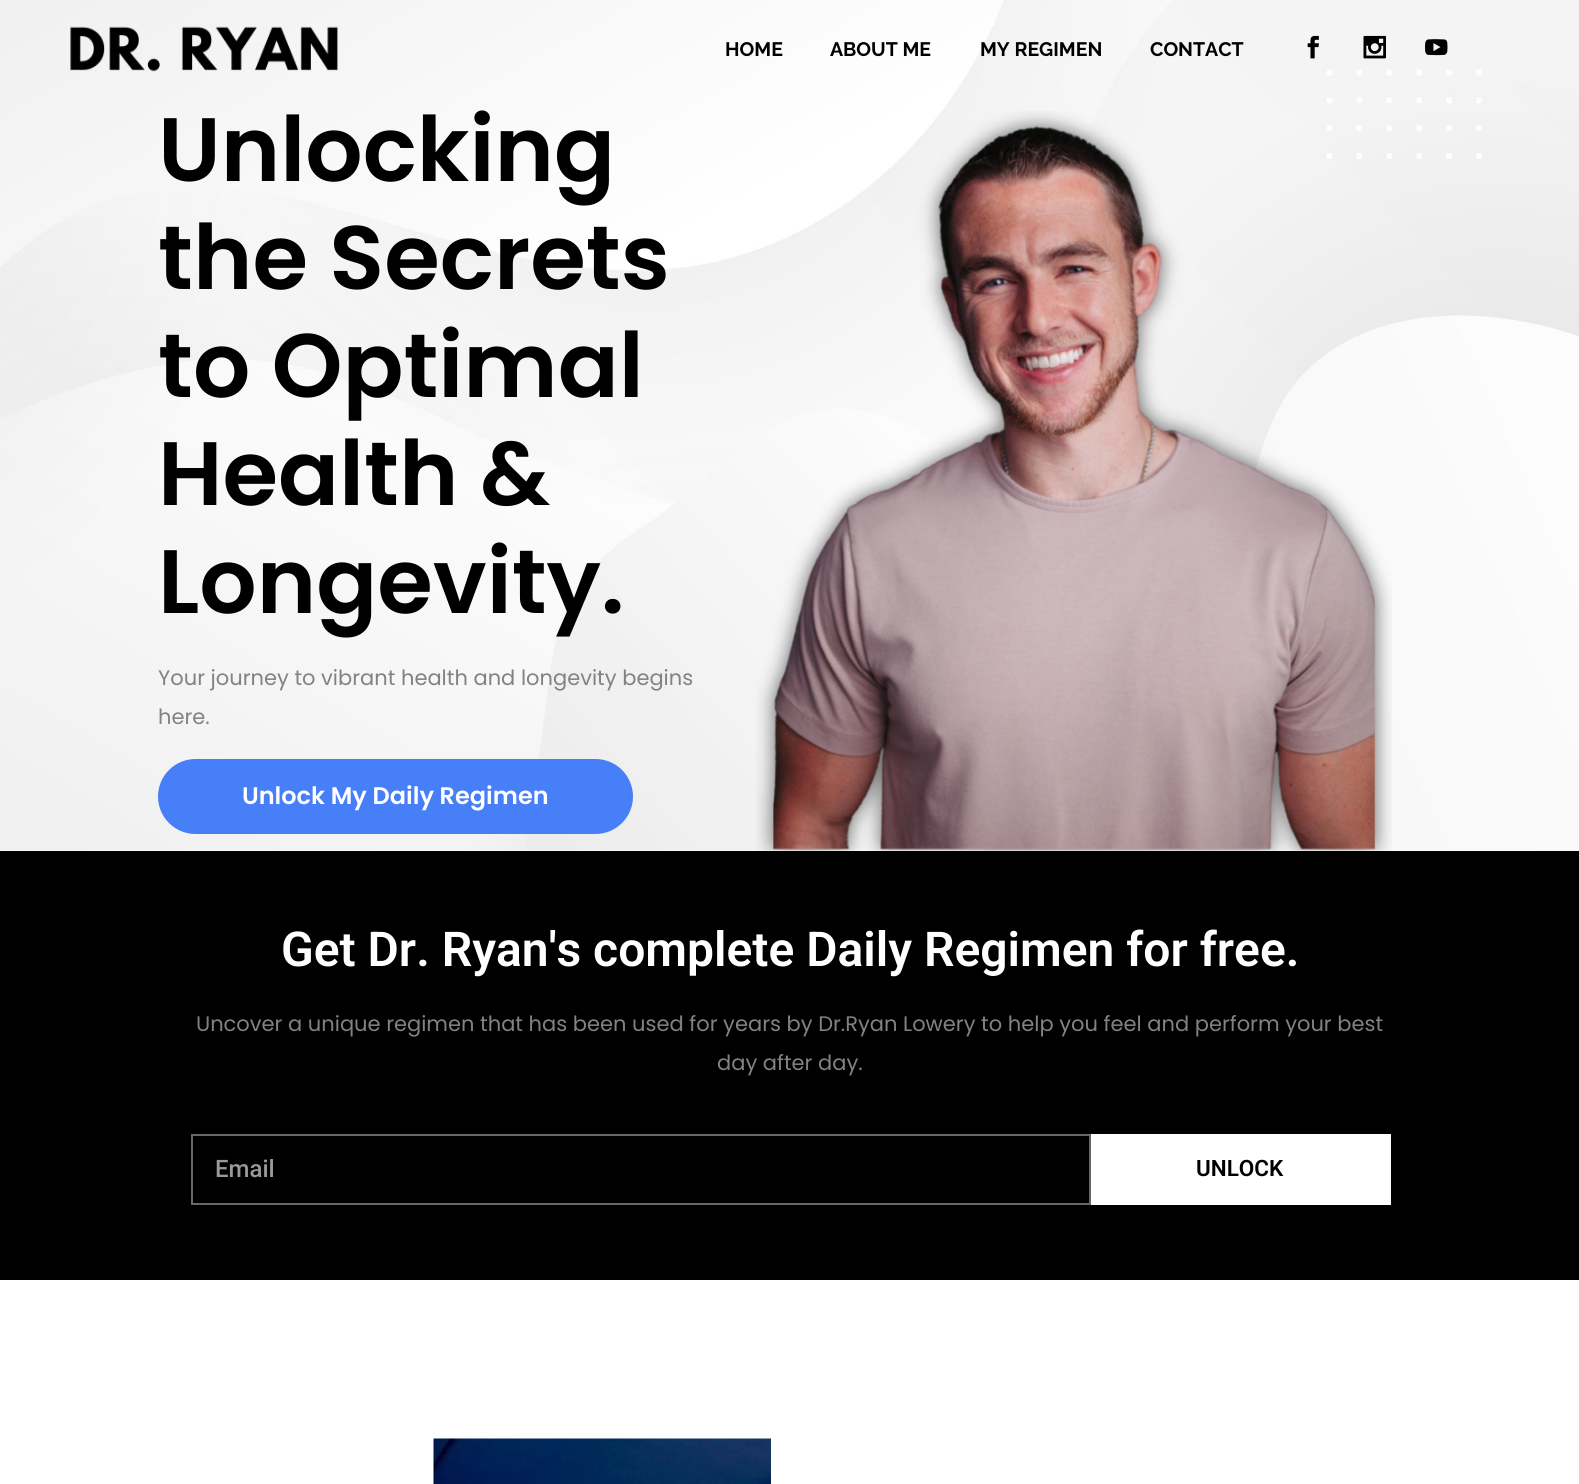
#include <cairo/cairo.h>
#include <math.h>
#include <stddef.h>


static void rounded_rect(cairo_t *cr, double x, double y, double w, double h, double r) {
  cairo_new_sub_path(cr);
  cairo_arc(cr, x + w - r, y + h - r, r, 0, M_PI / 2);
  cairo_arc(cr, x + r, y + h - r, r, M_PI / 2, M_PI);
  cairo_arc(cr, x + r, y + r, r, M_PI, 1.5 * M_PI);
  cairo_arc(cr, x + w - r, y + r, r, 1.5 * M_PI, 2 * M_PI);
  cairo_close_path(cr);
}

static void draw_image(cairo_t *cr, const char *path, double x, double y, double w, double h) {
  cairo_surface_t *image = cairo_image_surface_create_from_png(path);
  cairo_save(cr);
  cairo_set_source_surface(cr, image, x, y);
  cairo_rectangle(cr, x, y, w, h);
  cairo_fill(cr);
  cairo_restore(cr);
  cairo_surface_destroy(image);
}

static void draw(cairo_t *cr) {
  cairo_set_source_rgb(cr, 1, 1, 1);
  cairo_paint(cr);
  draw_image(cr, "images/5.png", 0, 0, 1579, 851);
  draw_image(cr, "images/1.png", 70, 26, 268, 46);
  draw_image(cr, "images/2.png", 1307, 35, 12, 24);
  draw_image(cr, "images/3.png", 1363, 35, 23, 24);
  draw_image(cr, "images/4.png", 1425, 39, 23, 17);
  cairo_set_source_rgb(cr, 70 / 255.0, 127 / 255.0, 247 / 255.0);
  rounded_rect(cr, 159, 760, 473, 73, 36.5);
  cairo_fill_preserve(cr);
  cairo_stroke(cr);
  draw_image(cr, "images/6.png", 756, 111, 636, 740);
  cairo_set_source_rgb(cr, 0, 0, 0);
  cairo_rectangle(cr, 0, 851, 1579, 429);
  cairo_fill(cr);
  cairo_rectangle(cr, 192, 1135, 898, 69);
  cairo_set_source_rgb(cr, 104 / 255.0, 104 / 255.0, 104 / 255.0);
  cairo_stroke(cr);
  cairo_set_source_rgb(cr, 1, 1, 1);
  cairo_rectangle(cr, 1091, 1134, 300, 71);
  cairo_fill(cr);
  draw_image(cr, "images/7.png", 433, 1438, 338, 46);
  cairo_select_font_face(cr, "Raleway", CAIRO_FONT_SLANT_NORMAL, CAIRO_FONT_WEIGHT_BOLD);
  cairo_set_font_size(cr, 19.5);
  cairo_set_source_rgb(cr, 0, 0, 0);
  cairo_move_to(cr, 725, 56);
  cairo_show_text(cr, "HOME");
  cairo_move_to(cr, 830, 56);
  cairo_show_text(cr, "ABOUT ME");
  cairo_move_to(cr, 980, 56);
  cairo_show_text(cr, "MY REGIMEN");
  cairo_move_to(cr, 1150, 56);
  cairo_show_text(cr, "CONTACT");
  cairo_select_font_face(cr, "Poppins SemiBold", CAIRO_FONT_SLANT_NORMAL, CAIRO_FONT_WEIGHT_NORMAL);
  cairo_set_font_size(cr, 90);
  cairo_move_to(cr, 158, 181);
  cairo_show_text(cr, "Unlocking");
  cairo_move_to(cr, 158, 289);
  cairo_show_text(cr, "the Secrets");
  cairo_move_to(cr, 158, 397);
  cairo_show_text(cr, "to Optimal");
  cairo_move_to(cr, 158, 505);
  cairo_show_text(cr, "Health &");
  cairo_move_to(cr, 158, 613);
  cairo_show_text(cr, "Longevity.");
  cairo_select_font_face(cr, "Poppins", CAIRO_FONT_SLANT_NORMAL, CAIRO_FONT_WEIGHT_NORMAL);
  cairo_set_font_size(cr, 21);
  cairo_set_source_rgb(cr, 130 / 255.0, 130 / 255.0, 130 / 255.0);
  cairo_move_to(cr, 158, 685);
  cairo_show_text(cr, "Your journey to vibrant health and longevity begins");
  cairo_move_to(cr, 158, 724);
  cairo_show_text(cr, "here.");
  cairo_select_font_face(cr, "Poppins SemiBold", CAIRO_FONT_SLANT_NORMAL, CAIRO_FONT_WEIGHT_NORMAL);
  cairo_set_font_size(cr, 24);
  cairo_set_source_rgb(cr, 1, 1, 1);
  cairo_move_to(cr, 242, 804);
  cairo_show_text(cr, "Unlock My Daily Regimen");
  cairo_select_font_face(cr, "Roboto SemiBold", CAIRO_FONT_SLANT_NORMAL, CAIRO_FONT_WEIGHT_NORMAL);
  cairo_set_font_size(cr, 48);
  cairo_move_to(cr, 281, 966);
  cairo_show_text(cr, "Get Dr. Ryan's complete Daily Regimen for free.");
  cairo_select_font_face(cr, "Poppins", CAIRO_FONT_SLANT_NORMAL, CAIRO_FONT_WEIGHT_NORMAL);
  cairo_set_font_size(cr, 21);
  cairo_set_source_rgb(cr, 130 / 255.0, 130 / 255.0, 130 / 255.0);
  cairo_move_to(cr, 196, 1031);
  cairo_show_text(cr, "Uncover a unique regimen that has been used for years by Dr.Ryan Lowery to help you feel and perform your best");
  cairo_move_to(cr, 717, 1070);
  cairo_show_text(cr, "day after day.");
  cairo_select_font_face(cr, "Roboto Medium", CAIRO_FONT_SLANT_NORMAL, CAIRO_FONT_WEIGHT_NORMAL);
  cairo_set_font_size(cr, 24);
  cairo_set_source_rgb(cr, 153 / 255.0, 153 / 255.0, 153 / 255.0);
  cairo_move_to(cr, 215, 1177);
  cairo_show_text(cr, "Email");
  cairo_select_font_face(cr, "Roboto SemiBold", CAIRO_FONT_SLANT_NORMAL, CAIRO_FONT_WEIGHT_NORMAL);
  cairo_set_font_size(cr, 22.5);
  cairo_set_source_rgb(cr, 0, 0, 0);
  cairo_move_to(cr, 1196, 1176);
  cairo_show_text(cr, "UNLOCK");
}

int main(void) {
  cairo_surface_t *surface = cairo_image_surface_create(CAIRO_FORMAT_RGB24, 1579, 1484);
  cairo_t *cr = cairo_create(surface);
  cairo_font_options_t *options = cairo_font_options_create();
  cairo_font_options_set_hint_metrics(options, CAIRO_HINT_METRICS_OFF);
  cairo_font_options_set_hint_style(options, CAIRO_HINT_STYLE_NONE);
  cairo_set_font_options(cr, options);
  cairo_set_miter_limit(cr, 4);
  draw(cr);
  cairo_surface_write_to_png(surface, "out.png");
  cairo_font_options_destroy(options);
  cairo_destroy(cr);
  cairo_surface_destroy(surface);
  return 0;
}
